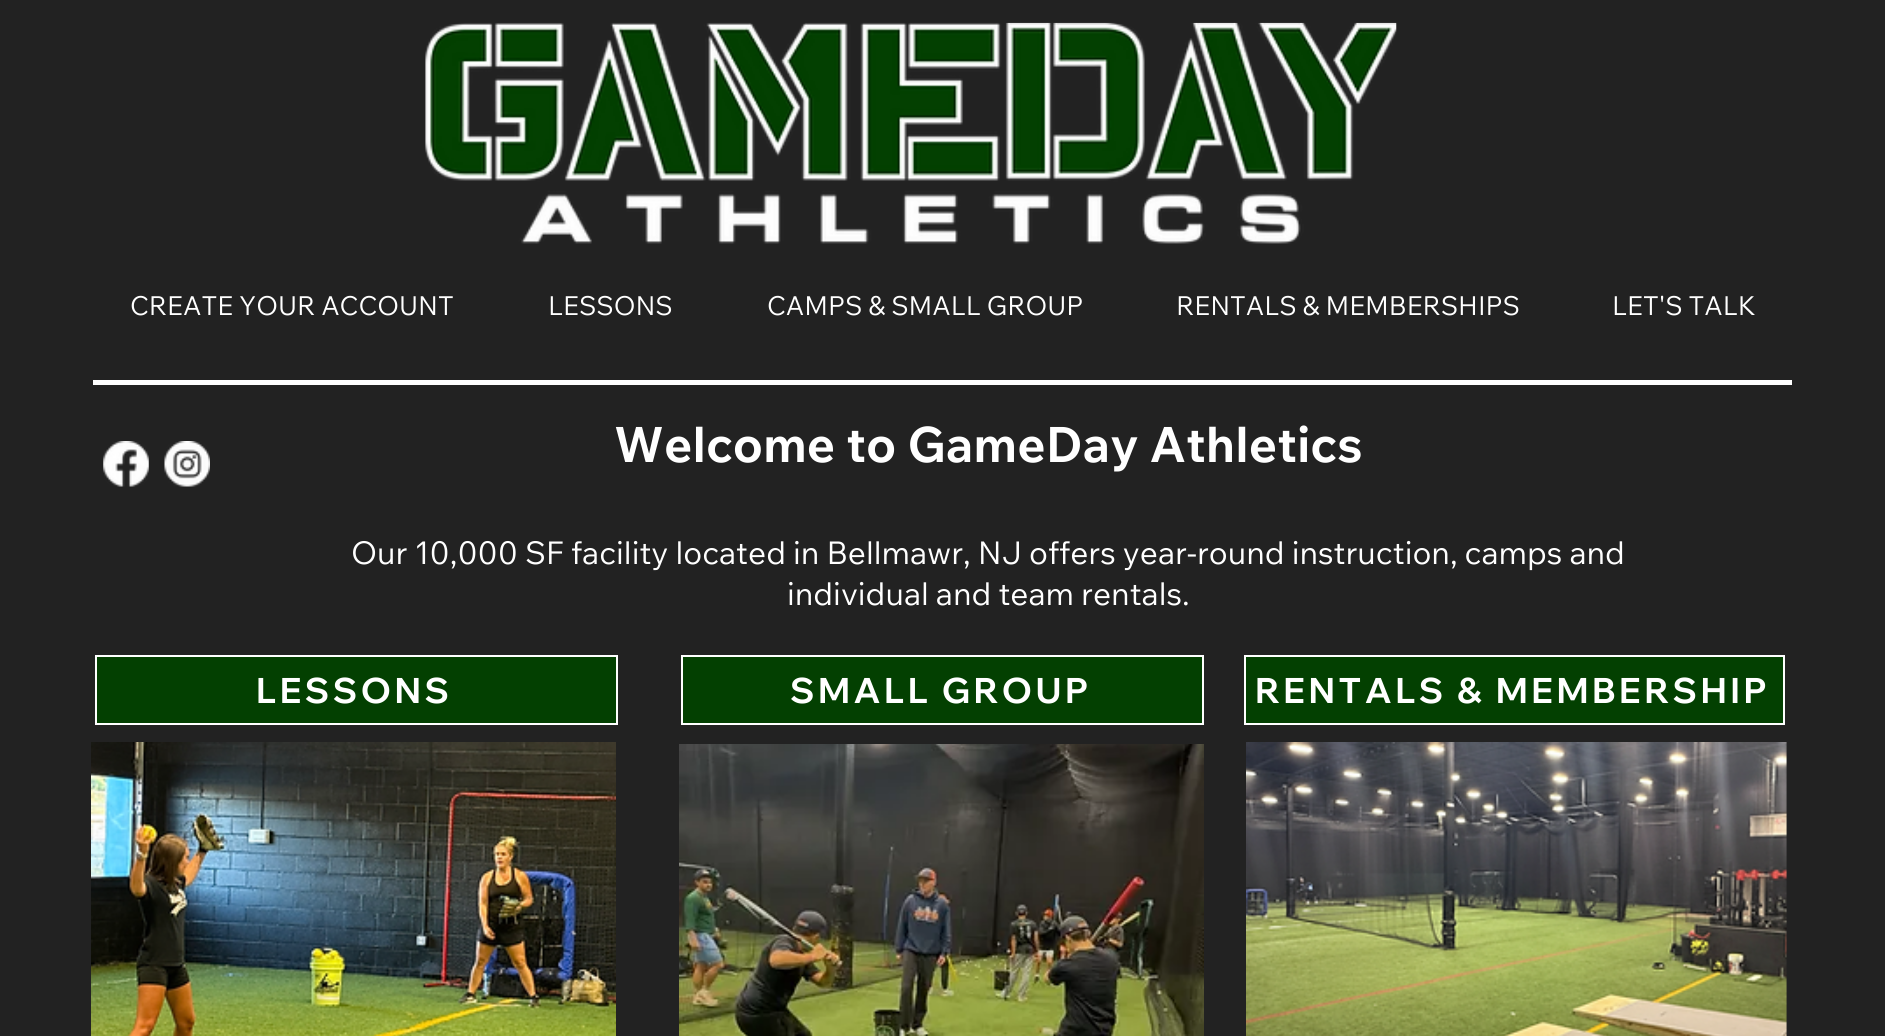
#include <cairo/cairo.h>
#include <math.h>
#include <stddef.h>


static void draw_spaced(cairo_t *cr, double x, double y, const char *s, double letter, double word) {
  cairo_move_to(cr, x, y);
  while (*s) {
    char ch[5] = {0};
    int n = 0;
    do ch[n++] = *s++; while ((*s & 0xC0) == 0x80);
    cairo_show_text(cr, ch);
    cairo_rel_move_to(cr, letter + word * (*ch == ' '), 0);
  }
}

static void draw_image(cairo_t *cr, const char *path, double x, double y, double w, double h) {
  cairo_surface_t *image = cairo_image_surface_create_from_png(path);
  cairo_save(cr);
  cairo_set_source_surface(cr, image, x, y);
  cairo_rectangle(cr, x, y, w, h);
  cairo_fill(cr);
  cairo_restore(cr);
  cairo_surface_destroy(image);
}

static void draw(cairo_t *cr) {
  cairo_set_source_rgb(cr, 34 / 255.0, 34 / 255.0, 34 / 255.0);
  cairo_paint(cr);
  draw_image(cr, "images/1.png", 425, 22, 972, 222);
  cairo_set_source_rgb(cr, 1, 1, 1);
  cairo_rectangle(cr, 93, 380, 1699, 5);
  cairo_fill(cr);
  draw_image(cr, "images/2.png", 103, 441, 46, 46);
  draw_image(cr, "images/3.png", 164, 441, 46, 46);
  cairo_set_source_rgb(cr, 3 / 255.0, 64 / 255.0, 1 / 255.0);
  cairo_rectangle(cr, 96, 656, 521, 68);
  cairo_fill_preserve(cr);
  cairo_set_source_rgb(cr, 1, 1, 1);
  cairo_stroke(cr);
  cairo_set_source_rgb(cr, 3 / 255.0, 64 / 255.0, 1 / 255.0);
  cairo_rectangle(cr, 682, 656, 521, 68);
  cairo_fill_preserve(cr);
  cairo_set_source_rgb(cr, 1, 1, 1);
  cairo_stroke(cr);
  cairo_set_source_rgb(cr, 3 / 255.0, 64 / 255.0, 1 / 255.0);
  cairo_rectangle(cr, 1245, 656, 539, 68);
  cairo_fill_preserve(cr);
  cairo_set_source_rgb(cr, 1, 1, 1);
  cairo_stroke(cr);
  draw_image(cr, "images/4.png", 91, 742, 525, 294);
  draw_image(cr, "images/5.png", 679, 744, 525, 292);
  draw_image(cr, "images/6.png", 1246, 742, 541, 294);
  cairo_select_font_face(cr, "Wix Madefor Text", CAIRO_FONT_SLANT_NORMAL, CAIRO_FONT_WEIGHT_NORMAL);
  cairo_set_font_size(cr, 26.25);
  cairo_move_to(cr, 130, 315);
  cairo_show_text(cr, "CREATE YOUR ACCOUNT");
  cairo_move_to(cr, 548, 315);
  cairo_show_text(cr, "LESSONS");
  cairo_move_to(cr, 767, 315);
  cairo_show_text(cr, "CAMPS & SMALL GROUP");
  cairo_move_to(cr, 1176, 315);
  cairo_show_text(cr, "RENTALS & MEMBERSHIPS");
  cairo_move_to(cr, 1612, 315);
  cairo_show_text(cr, "LET'S TALK");
  cairo_select_font_face(cr, "Wix Madefor Text", CAIRO_FONT_SLANT_NORMAL, CAIRO_FONT_WEIGHT_BOLD);
  cairo_set_font_size(cr, 49);
  cairo_move_to(cr, 614, 462);
  cairo_show_text(cr, "Welcome to GameDay Athletics");
  cairo_select_font_face(cr, "Wix Madefor Text", CAIRO_FONT_SLANT_NORMAL, CAIRO_FONT_WEIGHT_NORMAL);
  cairo_set_font_size(cr, 31.5);
  cairo_move_to(cr, 351, 564);
  cairo_show_text(cr, "Our 10,000 SF facility located in Bellmawr, NJ offers year-round instruction, camps and");
  cairo_move_to(cr, 787, 605);
  cairo_show_text(cr, "individual and team rentals.");
  cairo_select_font_face(cr, "Wix Madefor Display", CAIRO_FONT_SLANT_NORMAL, CAIRO_FONT_WEIGHT_BOLD);
  cairo_set_font_size(cr, 35);
  draw_spaced(cr, 256, 703, "LESSONS", 3.5, 0);
  draw_spaced(cr, 790, 703, "SMALL GROUP", 3.5, 0);
  draw_spaced(cr, 1255, 703, "RENTALS & MEMBERSHIP", 3.5, 0);
}

int main(void) {
  cairo_surface_t *surface = cairo_image_surface_create(CAIRO_FORMAT_RGB24, 1885, 1036);
  cairo_t *cr = cairo_create(surface);
  cairo_font_options_t *options = cairo_font_options_create();
  cairo_font_options_set_hint_metrics(options, CAIRO_HINT_METRICS_OFF);
  cairo_font_options_set_hint_style(options, CAIRO_HINT_STYLE_NONE);
  cairo_set_font_options(cr, options);
  cairo_set_miter_limit(cr, 4);
  draw(cr);
  cairo_surface_write_to_png(surface, "out.png");
  cairo_font_options_destroy(options);
  cairo_destroy(cr);
  cairo_surface_destroy(surface);
  return 0;
}
